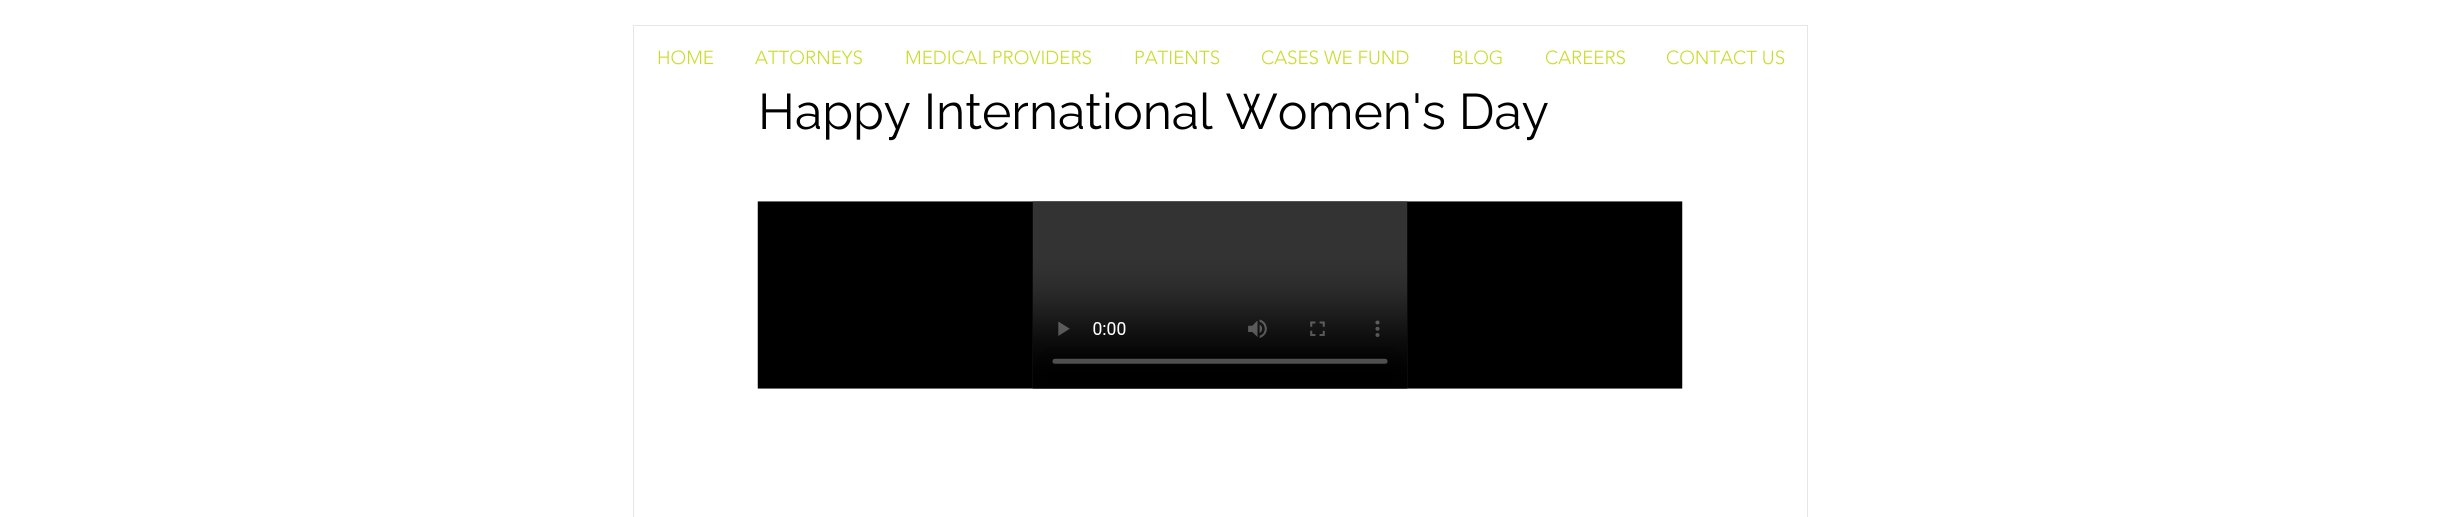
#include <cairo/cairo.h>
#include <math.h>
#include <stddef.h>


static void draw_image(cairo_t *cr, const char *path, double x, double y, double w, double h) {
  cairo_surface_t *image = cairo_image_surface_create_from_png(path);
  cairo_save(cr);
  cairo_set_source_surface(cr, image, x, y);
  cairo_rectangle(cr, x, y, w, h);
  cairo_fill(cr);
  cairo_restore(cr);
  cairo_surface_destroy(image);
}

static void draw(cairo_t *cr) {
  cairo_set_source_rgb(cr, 1, 1, 1);
  cairo_paint(cr);
  cairo_rectangle(cr, 633.5, 25.5, 1174, 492);
  cairo_set_source_rgb(cr, 230 / 255.0, 230 / 255.0, 230 / 255.0);
  cairo_set_line_width(cr, 1);
  cairo_stroke(cr);
  draw_image(cr, "images/1.png", 757, 201, 926, 188);
  cairo_select_font_face(cr, "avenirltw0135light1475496 Light", CAIRO_FONT_SLANT_NORMAL, CAIRO_FONT_WEIGHT_NORMAL);
  cairo_set_font_size(cr, 18.75);
  cairo_set_source_rgb(cr, 202 / 255.0, 219 / 255.0, 43 / 255.0);
  cairo_move_to(cr, 657, 64);
  cairo_show_text(cr, "HOME");
  cairo_move_to(cr, 755, 64);
  cairo_show_text(cr, "ATTORNEYS");
  cairo_move_to(cr, 905, 64);
  cairo_show_text(cr, "MEDICAL PROVIDERS");
  cairo_move_to(cr, 1134, 64);
  cairo_show_text(cr, "PATIENTS");
  cairo_move_to(cr, 1261, 64);
  cairo_show_text(cr, "CASES WE FUND");
  cairo_move_to(cr, 1452, 64);
  cairo_show_text(cr, "BLOG");
  cairo_move_to(cr, 1545, 64);
  cairo_show_text(cr, "CAREERS");
  cairo_move_to(cr, 1666, 64);
  cairo_show_text(cr, "CONTACT US");
  cairo_select_font_face(cr, "Raleway", CAIRO_FONT_SLANT_NORMAL, CAIRO_FONT_WEIGHT_NORMAL);
  cairo_set_font_size(cr, 50);
  cairo_set_source_rgb(cr, 0, 0, 0);
  cairo_move_to(cr, 758, 129);
  cairo_show_text(cr, "Happy International Women's Day");
}

int main(void) {
  cairo_surface_t *surface = cairo_image_surface_create(CAIRO_FORMAT_RGB24, 2439, 517);
  cairo_t *cr = cairo_create(surface);
  cairo_font_options_t *options = cairo_font_options_create();
  cairo_font_options_set_hint_metrics(options, CAIRO_HINT_METRICS_OFF);
  cairo_font_options_set_hint_style(options, CAIRO_HINT_STYLE_NONE);
  cairo_set_font_options(cr, options);
  cairo_set_miter_limit(cr, 4);
  draw(cr);
  cairo_surface_write_to_png(surface, "out.png");
  cairo_font_options_destroy(options);
  cairo_destroy(cr);
  cairo_surface_destroy(surface);
  return 0;
}
